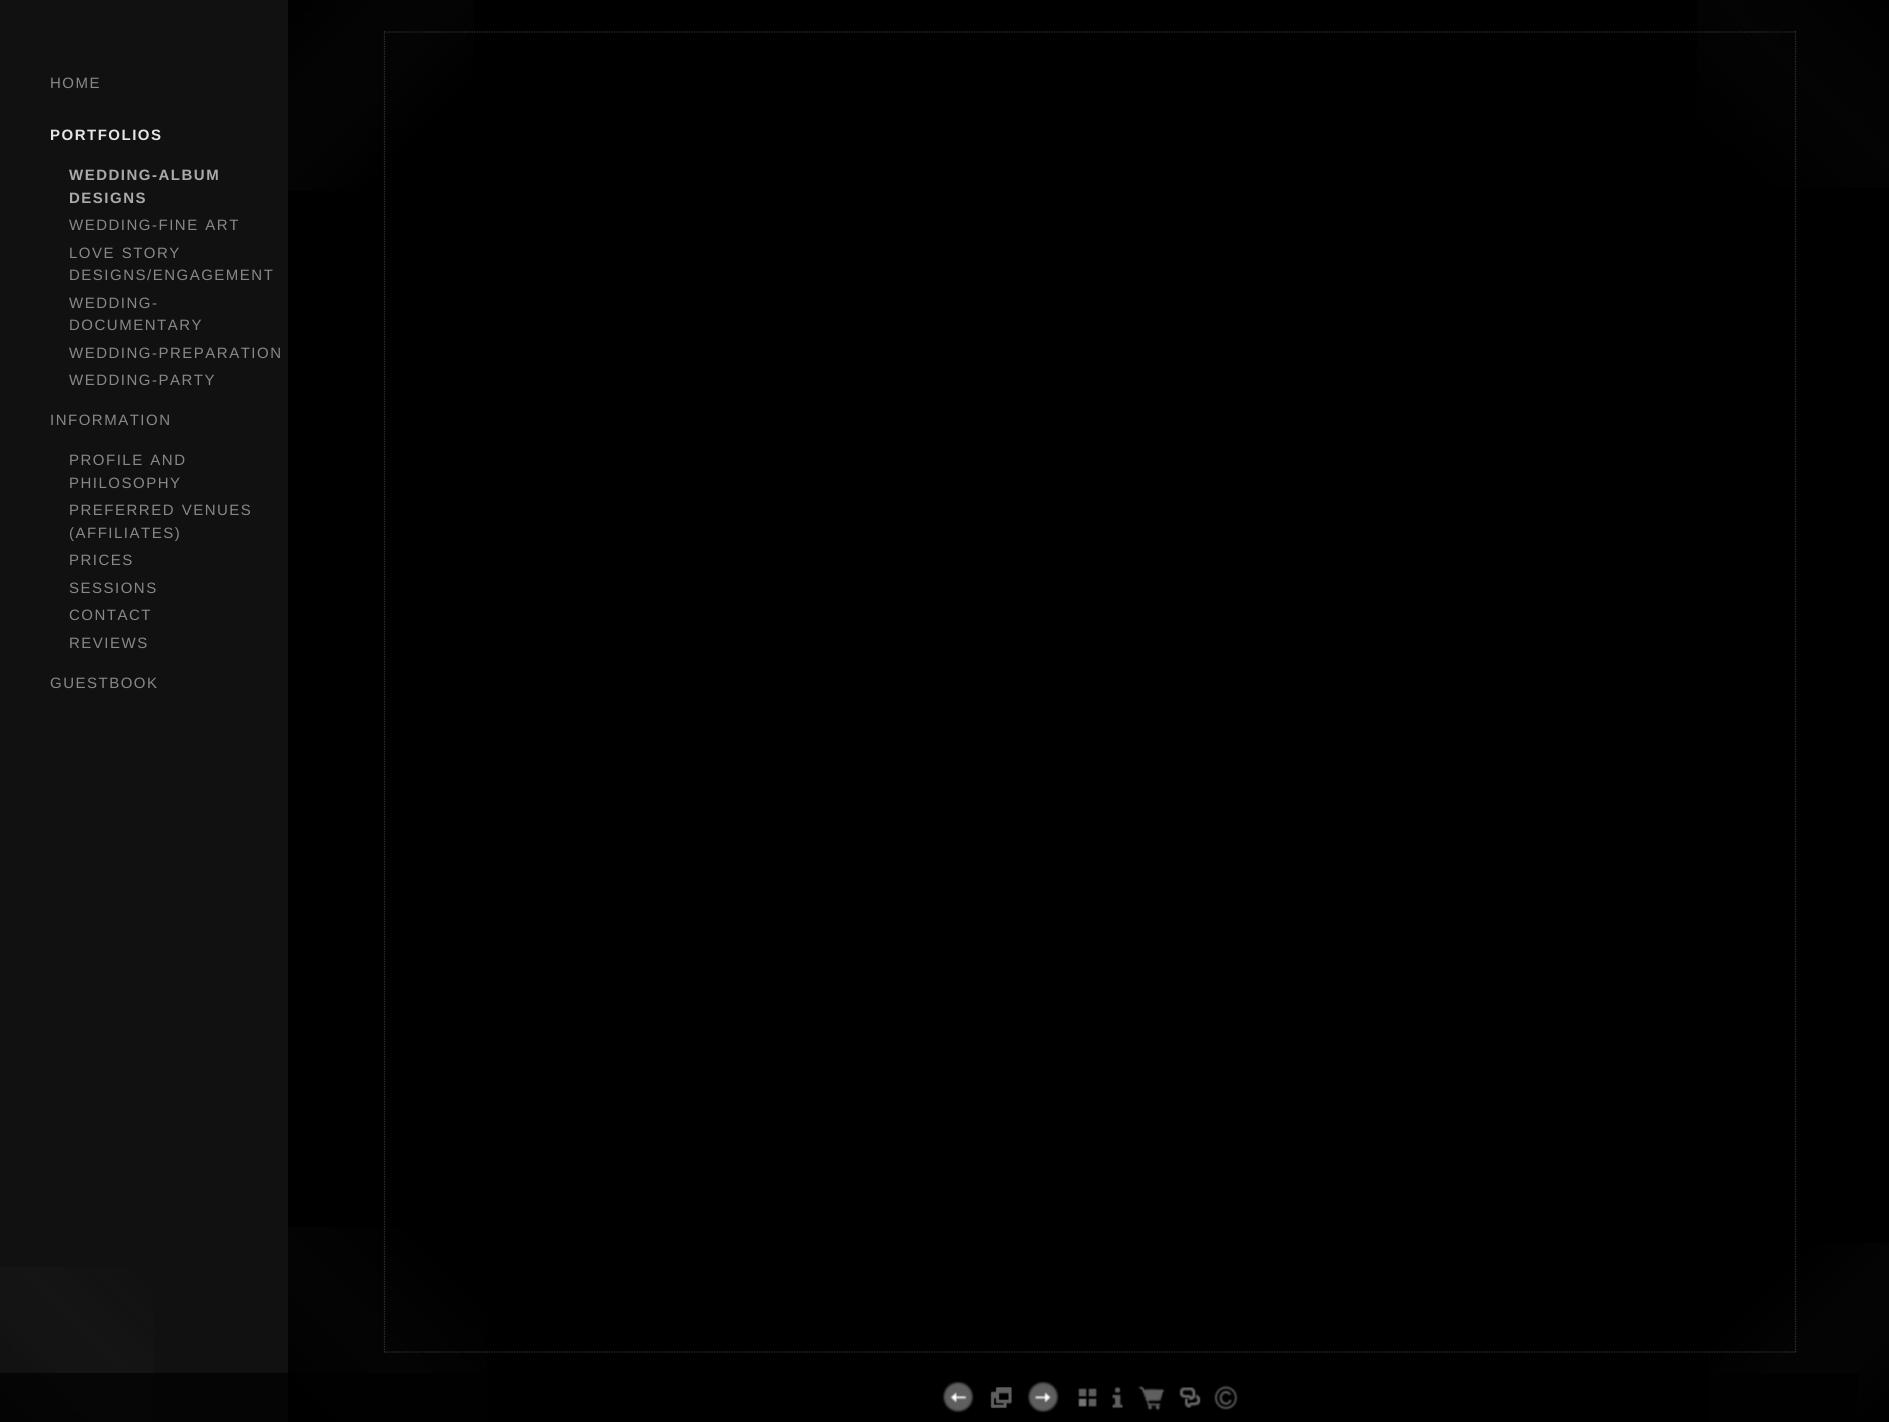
#include <cairo/cairo.h>
#include <math.h>
#include <stddef.h>


static void draw_spaced(cairo_t *cr, double x, double y, const char *s, double letter, double word) {
  cairo_move_to(cr, x, y);
  while (*s) {
    char ch[5] = {0};
    int n = 0;
    do ch[n++] = *s++; while ((*s & 0xC0) == 0x80);
    cairo_show_text(cr, ch);
    cairo_rel_move_to(cr, letter + word * (*ch == ' '), 0);
  }
}

static void draw_image(cairo_t *cr, const char *path, double x, double y, double w, double h) {
  cairo_surface_t *image = cairo_image_surface_create_from_png(path);
  cairo_save(cr);
  cairo_set_source_surface(cr, image, x, y);
  cairo_rectangle(cr, x, y, w, h);
  cairo_fill(cr);
  cairo_restore(cr);
  cairo_surface_destroy(image);
}

static void draw(cairo_t *cr) {
  cairo_set_source_rgb(cr, 0, 0, 0);
  cairo_paint(cr);
  cairo_set_source_rgb(cr, 17 / 255.0, 17 / 255.0, 17 / 255.0);
  cairo_rectangle(cr, 0, 0, 288, 1422);
  cairo_fill(cr);
  draw_image(cr, "images/1.png", 0, 1267, 154, 155);
  cairo_new_path(cr);
  cairo_move_to(cr, 384, 32);
  cairo_line_to(cr, 1796, 32);
  cairo_set_source_rgb(cr, 51 / 255.0, 51 / 255.0, 51 / 255.0);
  cairo_set_line_width(cr, 1.2);
  cairo_set_dash(cr, (double[]){1.25, 1.25}, 2, 0);
  cairo_stroke(cr);
  cairo_new_path(cr);
  cairo_move_to(cr, 1795.5, 31);
  cairo_line_to(cr, 1795.5, 1352.5);
  cairo_stroke(cr);
  cairo_new_path(cr);
  cairo_move_to(cr, 384, 1352);
  cairo_line_to(cr, 1796, 1352);
  cairo_stroke(cr);
  cairo_new_path(cr);
  cairo_move_to(cr, 384.5, 31);
  cairo_line_to(cr, 384.5, 1352.5);
  cairo_stroke(cr);
  draw_image(cr, "images/2.png", 288, 0, 186, 191);
  draw_image(cr, "images/3.png", 1697, 0, 192, 188);
  draw_image(cr, "images/4.png", 288, 1227, 199, 195);
  draw_image(cr, "images/5.png", 1708, 1243, 181, 179);
  cairo_set_source_rgba(cr, 0, 0, 0, 0.7);
  cairo_rectangle(cr, 0, 1373, 1858, 49);
  cairo_fill(cr);
  draw_image(cr, "images/6.png", 942, 1381, 32, 32);
  draw_image(cr, "images/7.png", 991, 1387, 21, 21);
  draw_image(cr, "images/8.png", 990, 1387, 22, 22);
  draw_image(cr, "images/9.png", 1027, 1381, 32, 32);
  draw_image(cr, "images/10.png", 1078, 1388, 19, 19);
  draw_image(cr, "images/11.png", 1111, 1387, 12, 22);
  draw_image(cr, "images/12.png", 1138, 1385, 27, 26);
  draw_image(cr, "images/13.png", 1179, 1387, 22, 22);
  draw_image(cr, "images/14.png", 1214, 1385, 24, 25);
  cairo_select_font_face(cr, "Liberation Sans", CAIRO_FONT_SLANT_NORMAL, CAIRO_FONT_WEIGHT_NORMAL);
  cairo_set_font_size(cr, 15);
  cairo_set_source_rgb(cr, 136 / 255.0, 136 / 255.0, 136 / 255.0);
  draw_spaced(cr, 50, 88, "HOME", 1.5, 0);
  cairo_select_font_face(cr, "Liberation Sans", CAIRO_FONT_SLANT_NORMAL, CAIRO_FONT_WEIGHT_BOLD);
  cairo_set_source_rgb(cr, 229 / 255.0, 229 / 255.0, 229 / 255.0);
  draw_spaced(cr, 50, 140, "PORTFOLIOS", 1.5, 0);
  cairo_set_source_rgb(cr, 170 / 255.0, 170 / 255.0, 170 / 255.0);
  draw_spaced(cr, 69, 180, "WEDDING-ALBUM", 1.5, 0);
  draw_spaced(cr, 69, 203, "DESIGNS", 1.5, 0);
  cairo_select_font_face(cr, "Liberation Sans", CAIRO_FONT_SLANT_NORMAL, CAIRO_FONT_WEIGHT_NORMAL);
  cairo_set_source_rgb(cr, 136 / 255.0, 136 / 255.0, 136 / 255.0);
  draw_spaced(cr, 69, 230, "WEDDING-FINE ART", 1.5, 1);
  draw_spaced(cr, 69, 258, "LOVE STORY", 1.5, 1);
  draw_spaced(cr, 69, 280, "DESIGNS/ENGAGEMENT", 1.5, 0);
  draw_spaced(cr, 69, 308, "WEDDING-", 1.5, 0);
  draw_spaced(cr, 69, 330, "DOCUMENTARY", 1.5, 0);
  draw_spaced(cr, 69, 358, "WEDDING-PREPARATION", 1.5, 0);
  draw_spaced(cr, 69, 385, "WEDDING-PARTY", 1.5, 0);
  draw_spaced(cr, 50, 425, "INFORMATION", 1.5, 0);
  draw_spaced(cr, 69, 465, "PROFILE AND", 1.5, 1);
  draw_spaced(cr, 69, 488, "PHILOSOPHY", 1.5, 0);
  draw_spaced(cr, 69, 515, "PREFERRED VENUES", 1.5, 1);
  draw_spaced(cr, 69, 538, "(AFFILIATES)", 1.5, 0);
  draw_spaced(cr, 69, 565, "PRICES", 1.5, 0);
  draw_spaced(cr, 69, 593, "SESSIONS", 1.5, 0);
  draw_spaced(cr, 69, 620, "CONTACT", 1.5, 0);
  draw_spaced(cr, 69, 648, "REVIEWS", 1.5, 0);
  draw_spaced(cr, 50, 688, "GUESTBOOK", 1.5, 0);
}

int main(void) {
  cairo_surface_t *surface = cairo_image_surface_create(CAIRO_FORMAT_RGB24, 1889, 1422);
  cairo_t *cr = cairo_create(surface);
  cairo_font_options_t *options = cairo_font_options_create();
  cairo_font_options_set_hint_metrics(options, CAIRO_HINT_METRICS_OFF);
  cairo_font_options_set_hint_style(options, CAIRO_HINT_STYLE_NONE);
  cairo_set_font_options(cr, options);
  cairo_set_miter_limit(cr, 4);
  draw(cr);
  cairo_surface_write_to_png(surface, "out.png");
  cairo_font_options_destroy(options);
  cairo_destroy(cr);
  cairo_surface_destroy(surface);
  return 0;
}
